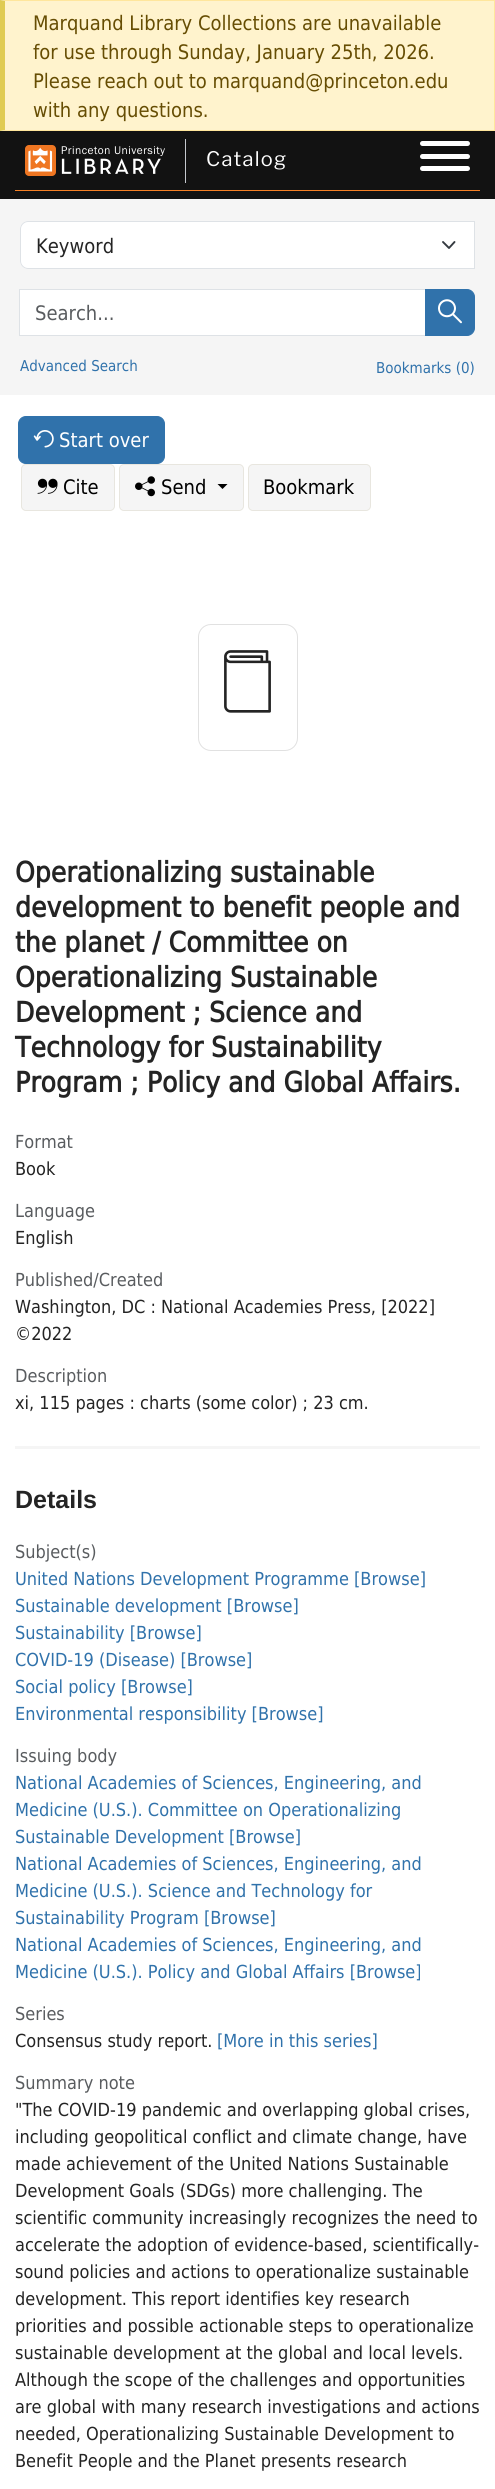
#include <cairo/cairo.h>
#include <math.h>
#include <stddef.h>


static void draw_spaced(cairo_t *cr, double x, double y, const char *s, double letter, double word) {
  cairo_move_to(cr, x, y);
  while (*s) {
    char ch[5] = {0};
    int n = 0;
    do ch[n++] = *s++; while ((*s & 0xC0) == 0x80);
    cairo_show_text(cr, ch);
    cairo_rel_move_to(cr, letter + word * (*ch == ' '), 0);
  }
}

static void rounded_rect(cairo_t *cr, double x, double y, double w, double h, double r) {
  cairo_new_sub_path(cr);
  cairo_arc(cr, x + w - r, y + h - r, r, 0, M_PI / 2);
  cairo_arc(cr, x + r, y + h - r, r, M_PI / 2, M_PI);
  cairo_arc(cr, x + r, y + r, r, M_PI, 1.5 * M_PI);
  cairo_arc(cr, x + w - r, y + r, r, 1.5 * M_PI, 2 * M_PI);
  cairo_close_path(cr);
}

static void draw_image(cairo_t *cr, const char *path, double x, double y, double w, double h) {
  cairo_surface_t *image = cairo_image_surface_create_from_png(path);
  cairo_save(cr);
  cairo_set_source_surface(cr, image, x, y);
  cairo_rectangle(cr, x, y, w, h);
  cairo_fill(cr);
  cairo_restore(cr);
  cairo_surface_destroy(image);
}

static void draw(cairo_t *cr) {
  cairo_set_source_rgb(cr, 245 / 255.0, 245 / 255.0, 245 / 255.0);
  cairo_paint(cr);
  cairo_set_source_rgb(cr, 1, 243 / 255.0, 205 / 255.0);
  cairo_rectangle(cr, 5, 1, 489, 129);
  cairo_fill(cr);
  cairo_set_source_rgb(cr, 1, 230 / 255.0, 156 / 255.0);
  cairo_new_path(cr);
  cairo_move_to(cr, 0, 0);
  cairo_line_to(cr, 495, 0);
  cairo_line_to(cr, 494, 1);
  cairo_line_to(cr, 5, 1);
  cairo_close_path(cr);
  cairo_fill(cr);
  cairo_rectangle(cr, 494, 0, 1, 131);
  cairo_fill(cr);
  cairo_new_path(cr);
  cairo_move_to(cr, 495, 131);
  cairo_line_to(cr, 0, 131);
  cairo_line_to(cr, 5, 130);
  cairo_line_to(cr, 494, 130);
  cairo_close_path(cr);
  cairo_fill(cr);
  cairo_set_source_rgb(cr, 224 / 255.0, 203 / 255.0, 82 / 255.0);
  cairo_new_path(cr);
  cairo_move_to(cr, 0, 131);
  cairo_line_to(cr, 0, 0);
  cairo_line_to(cr, 5, 1);
  cairo_line_to(cr, 5, 130);
  cairo_close_path(cr);
  cairo_fill(cr);
  cairo_set_source_rgb(cr, 18 / 255.0, 18 / 255.0, 18 / 255.0);
  cairo_rectangle(cr, 0, 131, 495, 68);
  cairo_fill(cr);
  cairo_set_source_rgb(cr, 245 / 255.0, 128 / 255.0, 37 / 255.0);
  cairo_rectangle(cr, 15, 190, 465, 1);
  cairo_fill(cr);
  draw_image(cr, "images/1.png", 25, 145, 140, 31);
  cairo_set_source_rgb(cr, 197 / 255.0, 200 / 255.0, 206 / 255.0);
  cairo_rectangle(cr, 185, 139, 1, 44);
  cairo_fill(cr);
  cairo_set_source_rgb(cr, 1, 1, 1);
  rounded_rect(cr, 420, 154, 50, 5, 2.5);
  cairo_fill(cr);
  rounded_rect(cr, 420, 141, 50, 5, 2.5);
  cairo_fill(cr);
  rounded_rect(cr, 420, 166, 50, 5, 2.5);
  cairo_fill(cr);
  cairo_new_path(cr);
  cairo_move_to(cr, 28, 221);
  cairo_line_to(cr, 475, 221);
  cairo_line_to(cr, 475, 269);
  cairo_line_to(cr, 28, 269);
  cairo_curve_to(cr, 23.5, 269, 20, 265.5, 20, 261);
  cairo_line_to(cr, 20, 229);
  cairo_curve_to(cr, 20, 224.5, 23.5, 221, 28, 221);
  cairo_close_path(cr);
  cairo_fill(cr);
  cairo_new_path(cr);
  cairo_move_to(cr, 443, 242);
  cairo_line_to(cr, 449, 248);
  cairo_line_to(cr, 454.5, 242);
  cairo_set_source_rgb(cr, 52 / 255.0, 58 / 255.0, 64 / 255.0);
  cairo_set_line_width(cr, 1.9);
  cairo_set_line_cap(cr, CAIRO_LINE_CAP_ROUND);
  cairo_set_line_join(cr, CAIRO_LINE_JOIN_ROUND);
  cairo_stroke(cr);
  cairo_new_path(cr);
  cairo_move_to(cr, 28, 221.5);
  cairo_line_to(cr, 474.5, 221.5);
  cairo_line_to(cr, 474.5, 268.5);
  cairo_line_to(cr, 28, 268.5);
  cairo_curve_to(cr, 24, 268.5, 20.5, 265, 20.5, 261);
  cairo_line_to(cr, 20.5, 229);
  cairo_curve_to(cr, 20.5, 225, 24, 221.5, 28, 221.5);
  cairo_close_path(cr);
  cairo_set_source_rgb(cr, 222 / 255.0, 226 / 255.0, 230 / 255.0);
  cairo_set_line_width(cr, 1);
  cairo_set_line_cap(cr, CAIRO_LINE_CAP_BUTT);
  cairo_set_line_join(cr, CAIRO_LINE_JOIN_MITER);
  cairo_stroke(cr);
  cairo_set_source_rgb(cr, 1, 1, 1);
  cairo_rectangle(cr, 19.5, 289.5, 406, 46);
  cairo_fill_preserve(cr);
  cairo_set_source_rgb(cr, 222 / 255.0, 226 / 255.0, 230 / 255.0);
  cairo_stroke(cr);
  cairo_set_source_rgb(cr, 48 / 255.0, 114 / 255.0, 171 / 255.0);
  cairo_new_path(cr);
  cairo_move_to(cr, 425.5, 289.5);
  cairo_line_to(cr, 467, 289.5);
  cairo_curve_to(cr, 471, 289.5, 474.5, 293, 474.5, 297);
  cairo_line_to(cr, 474.5, 328);
  cairo_curve_to(cr, 474.5, 332, 471, 335.5, 467, 335.5);
  cairo_line_to(cr, 425.5, 335.5);
  cairo_close_path(cr);
  cairo_fill_preserve(cr);
  cairo_stroke(cr);
  draw_image(cr, "images/2.png", 438, 299, 24, 25);
  cairo_set_source_rgb(cr, 1, 1, 1);
  cairo_rectangle(cr, 0, 395, 495, 2094);
  cairo_fill(cr);
  cairo_set_source_rgb(cr, 48 / 255.0, 114 / 255.0, 171 / 255.0);
  rounded_rect(cr, 18.5, 416.5, 146, 47, 7.5);
  cairo_fill_preserve(cr);
  cairo_stroke(cr);
  draw_image(cr, "images/3.png", 33, 430, 21, 18);
  cairo_set_source_rgb(cr, 245 / 255.0, 245 / 255.0, 245 / 255.0);
  rounded_rect(cr, 21.5, 464.5, 93, 46, 4.5);
  cairo_fill_preserve(cr);
  cairo_set_source_rgb(cr, 232 / 255.0, 230 / 255.0, 223 / 255.0);
  cairo_stroke(cr);
  draw_image(cr, "images/4.png", 37, 478, 21, 16);
  cairo_set_source_rgb(cr, 245 / 255.0, 245 / 255.0, 245 / 255.0);
  rounded_rect(cr, 119.5, 464.5, 124, 46, 4.5);
  cairo_fill_preserve(cr);
  cairo_set_source_rgb(cr, 232 / 255.0, 230 / 255.0, 223 / 255.0);
  cairo_stroke(cr);
  draw_image(cr, "images/5.png", 135, 476, 20, 21);
  cairo_set_source_rgb(cr, 0, 0, 0);
  cairo_new_path(cr);
  cairo_move_to(cr, 217.5, 484);
  cairo_line_to(cr, 227.5, 484);
  cairo_line_to(cr, 222.5, 489);
  cairo_close_path(cr);
  cairo_fill(cr);
  cairo_set_source_rgb(cr, 245 / 255.0, 245 / 255.0, 245 / 255.0);
  rounded_rect(cr, 248.5, 464.5, 122, 46, 4.5);
  cairo_fill_preserve(cr);
  cairo_set_source_rgb(cr, 232 / 255.0, 230 / 255.0, 223 / 255.0);
  cairo_stroke(cr);
  rounded_rect(cr, 198.5, 624.5, 99, 126, 12.5);
  cairo_set_source_rgb(cr, 225 / 255.0, 225 / 255.0, 225 / 255.0);
  cairo_stroke(cr);
  draw_image(cr, "images/6.png", 224, 650, 47, 63);
  cairo_set_source_rgb(cr, 245 / 255.0, 245 / 255.0, 245 / 255.0);
  cairo_rectangle(cr, 15, 1446, 465, 3);
  cairo_fill(cr);
  cairo_select_font_face(cr, "DejaVu Sans", CAIRO_FONT_SLANT_NORMAL, CAIRO_FONT_WEIGHT_NORMAL);
  cairo_set_font_size(cr, 20);
  cairo_set_source_rgb(cr, 102 / 255.0, 77 / 255.0, 3 / 255.0);
  cairo_move_to(cr, 33, 30);
  cairo_show_text(cr, "Marquand Library Collections are unavailable");
  cairo_move_to(cr, 33, 59);
  cairo_show_text(cr, "for use through Sunday, January 25th, 2026.");
  cairo_move_to(cr, 33, 88);
  cairo_show_text(cr, "Please reach out to marquand@princeton.edu");
  cairo_move_to(cr, 33, 117);
  cairo_show_text(cr, "with any questions.");
  cairo_select_font_face(cr, "Libre Franklin", CAIRO_FONT_SLANT_NORMAL, CAIRO_FONT_WEIGHT_NORMAL);
  cairo_set_source_rgb(cr, 1, 1, 1);
  draw_spaced(cr, 206, 166, "Catalog", 1.25, 0);
  cairo_select_font_face(cr, "DejaVu Sans", CAIRO_FONT_SLANT_NORMAL, CAIRO_FONT_WEIGHT_NORMAL);
  cairo_set_source_rgb(cr, 36 / 255.0, 36 / 255.0, 36 / 255.0);
  cairo_move_to(cr, 36, 253);
  cairo_show_text(cr, "Keyword");
  cairo_set_source_rgb(cr, 89 / 255.0, 92 / 255.0, 95 / 255.0);
  cairo_move_to(cr, 35, 320);
  cairo_show_text(cr, "Search...");
  cairo_set_font_size(cr, 15);
  cairo_set_source_rgb(cr, 48 / 255.0, 114 / 255.0, 171 / 255.0);
  cairo_move_to(cr, 20, 371);
  cairo_show_text(cr, "Advanced Search");
  cairo_move_to(cr, 376, 373);
  cairo_show_text(cr, "Bookmarks (0)");
  cairo_set_font_size(cr, 20);
  cairo_set_source_rgb(cr, 1, 1, 1);
  cairo_move_to(cr, 59, 447);
  cairo_show_text(cr, "Start over");
  cairo_set_source_rgb(cr, 0, 0, 0);
  cairo_move_to(cr, 63, 494);
  cairo_show_text(cr, "Cite");
  cairo_move_to(cr, 161, 494);
  cairo_show_text(cr, "Send");
  cairo_move_to(cr, 263, 494);
  cairo_show_text(cr, "Bookmark");
  cairo_select_font_face(cr, "DejaVu Sans", CAIRO_FONT_SLANT_NORMAL, CAIRO_FONT_WEIGHT_BOLD);
  cairo_set_font_size(cr, 28);
  cairo_set_source_rgb(cr, 36 / 255.0, 36 / 255.0, 36 / 255.0);
  cairo_move_to(cr, 15, 882);
  cairo_show_text(cr, "Operationalizing sustainable");
  cairo_move_to(cr, 15, 917);
  cairo_show_text(cr, "development to benefit people and");
  cairo_move_to(cr, 15, 952);
  cairo_show_text(cr, "the planet / Committee on");
  cairo_move_to(cr, 15, 987);
  cairo_show_text(cr, "Operationalizing Sustainable");
  cairo_move_to(cr, 15, 1022);
  cairo_show_text(cr, "Development ; Science and");
  cairo_move_to(cr, 15, 1057);
  cairo_show_text(cr, "Technology for Sustainability");
  cairo_move_to(cr, 15, 1092);
  cairo_show_text(cr, "Program ; Policy and Global Affairs.");
  cairo_select_font_face(cr, "DejaVu Sans", CAIRO_FONT_SLANT_NORMAL, CAIRO_FONT_WEIGHT_NORMAL);
  cairo_set_font_size(cr, 18);
  cairo_set_source_rgb(cr, 89 / 255.0, 92 / 255.0, 95 / 255.0);
  cairo_move_to(cr, 15, 1148);
  cairo_show_text(cr, "Format");
  cairo_set_source_rgb(cr, 36 / 255.0, 36 / 255.0, 36 / 255.0);
  cairo_move_to(cr, 15, 1175);
  cairo_show_text(cr, "Book");
  cairo_set_source_rgb(cr, 89 / 255.0, 92 / 255.0, 95 / 255.0);
  cairo_move_to(cr, 15, 1217);
  cairo_show_text(cr, "Language");
  cairo_set_source_rgb(cr, 36 / 255.0, 36 / 255.0, 36 / 255.0);
  cairo_move_to(cr, 15, 1244);
  cairo_show_text(cr, "English");
  cairo_set_source_rgb(cr, 89 / 255.0, 92 / 255.0, 95 / 255.0);
  cairo_move_to(cr, 15, 1286);
  cairo_show_text(cr, "Published/Created");
  cairo_set_source_rgb(cr, 36 / 255.0, 36 / 255.0, 36 / 255.0);
  cairo_move_to(cr, 15, 1313);
  cairo_show_text(cr, "Washington, DC : National Academies Press, [2022]");
  cairo_move_to(cr, 15, 1340);
  cairo_show_text(cr, "©2022");
  cairo_set_source_rgb(cr, 89 / 255.0, 92 / 255.0, 95 / 255.0);
  cairo_move_to(cr, 15, 1382);
  cairo_show_text(cr, "Description");
  cairo_set_source_rgb(cr, 36 / 255.0, 36 / 255.0, 36 / 255.0);
  cairo_move_to(cr, 15, 1409);
  cairo_show_text(cr, "xi, 115 pages : charts (some color) ; 23 cm.");
  cairo_select_font_face(cr, "Liberation Sans", CAIRO_FONT_SLANT_NORMAL, CAIRO_FONT_WEIGHT_BOLD);
  cairo_set_font_size(cr, 25);
  cairo_move_to(cr, 15, 1508);
  cairo_show_text(cr, "Details");
  cairo_select_font_face(cr, "DejaVu Sans", CAIRO_FONT_SLANT_NORMAL, CAIRO_FONT_WEIGHT_NORMAL);
  cairo_set_font_size(cr, 18);
  cairo_set_source_rgb(cr, 89 / 255.0, 92 / 255.0, 95 / 255.0);
  cairo_move_to(cr, 15, 1558);
  cairo_show_text(cr, "Subject(s)");
  cairo_set_source_rgb(cr, 48 / 255.0, 114 / 255.0, 171 / 255.0);
  cairo_move_to(cr, 15, 1585);
  cairo_show_text(cr, "United Nations Development Programme [Browse]");
  cairo_move_to(cr, 15, 1612);
  cairo_show_text(cr, "Sustainable development [Browse]");
  cairo_move_to(cr, 15, 1639);
  cairo_show_text(cr, "Sustainability [Browse]");
  cairo_move_to(cr, 15, 1666);
  cairo_show_text(cr, "COVID-19 (Disease) [Browse]");
  cairo_move_to(cr, 15, 1693);
  cairo_show_text(cr, "Social policy [Browse]");
  cairo_move_to(cr, 15, 1720);
  cairo_show_text(cr, "Environmental responsibility [Browse]");
  cairo_set_source_rgb(cr, 89 / 255.0, 92 / 255.0, 95 / 255.0);
  cairo_move_to(cr, 15, 1762);
  cairo_show_text(cr, "Issuing body");
  cairo_set_source_rgb(cr, 48 / 255.0, 114 / 255.0, 171 / 255.0);
  cairo_move_to(cr, 15, 1789);
  cairo_show_text(cr, "National Academies of Sciences, Engineering, and");
  cairo_move_to(cr, 15, 1816);
  cairo_show_text(cr, "Medicine (U.S.). Committee on Operationalizing");
  cairo_move_to(cr, 15, 1843);
  cairo_show_text(cr, "Sustainable Development [Browse]");
  cairo_move_to(cr, 15, 1870);
  cairo_show_text(cr, "National Academies of Sciences, Engineering, and");
  cairo_move_to(cr, 15, 1897);
  cairo_show_text(cr, "Medicine (U.S.). Science and Technology for");
  cairo_move_to(cr, 15, 1924);
  cairo_show_text(cr, "Sustainability Program [Browse]");
  cairo_move_to(cr, 15, 1951);
  cairo_show_text(cr, "National Academies of Sciences, Engineering, and");
  cairo_move_to(cr, 15, 1978);
  cairo_show_text(cr, "Medicine (U.S.). Policy and Global Affairs [Browse]");
  cairo_set_source_rgb(cr, 89 / 255.0, 92 / 255.0, 95 / 255.0);
  cairo_move_to(cr, 15, 2020);
  cairo_show_text(cr, "Series");
  cairo_set_source_rgb(cr, 36 / 255.0, 36 / 255.0, 36 / 255.0);
  cairo_move_to(cr, 15, 2047);
  cairo_show_text(cr, "Consensus study report.");
  cairo_set_source_rgb(cr, 48 / 255.0, 114 / 255.0, 171 / 255.0);
  cairo_move_to(cr, 217, 2047);
  cairo_show_text(cr, "[More in this series]");
  cairo_set_source_rgb(cr, 89 / 255.0, 92 / 255.0, 95 / 255.0);
  cairo_move_to(cr, 15, 2089);
  cairo_show_text(cr, "Summary note");
  cairo_set_source_rgb(cr, 36 / 255.0, 36 / 255.0, 36 / 255.0);
  cairo_move_to(cr, 15, 2116);
  cairo_show_text(cr, "\"The COVID-19 pandemic and overlapping global crises,");
  cairo_move_to(cr, 15, 2143);
  cairo_show_text(cr, "including geopolitical conflict and climate change, have");
  cairo_move_to(cr, 15, 2170);
  cairo_show_text(cr, "made achievement of the United Nations Sustainable");
  cairo_move_to(cr, 15, 2197);
  cairo_show_text(cr, "Development Goals (SDGs) more challenging. The");
  cairo_move_to(cr, 15, 2224);
  cairo_show_text(cr, "scientific community increasingly recognizes the need to");
  cairo_move_to(cr, 15, 2251);
  cairo_show_text(cr, "accelerate the adoption of evidence-based, scientifically-");
  cairo_move_to(cr, 15, 2278);
  cairo_show_text(cr, "sound policies and actions to operationalize sustainable");
  cairo_move_to(cr, 15, 2305);
  cairo_show_text(cr, "development. This report identifies key research");
  cairo_move_to(cr, 15, 2332);
  cairo_show_text(cr, "priorities and possible actionable steps to operationalize");
  cairo_move_to(cr, 15, 2359);
  cairo_show_text(cr, "sustainable development at the global and local levels.");
  cairo_move_to(cr, 15, 2386);
  cairo_show_text(cr, "Although the scope of the challenges and opportunities");
  cairo_move_to(cr, 15, 2413);
  cairo_show_text(cr, "are global with many research investigations and actions");
  cairo_move_to(cr, 15, 2440);
  cairo_show_text(cr, "needed, Operationalizing Sustainable Development to");
  cairo_move_to(cr, 15, 2467);
  cairo_show_text(cr, "Benefit People and the Planet presents research");
}

int main(void) {
  cairo_surface_t *surface = cairo_image_surface_create(CAIRO_FORMAT_RGB24, 495, 2489);
  cairo_t *cr = cairo_create(surface);
  cairo_font_options_t *options = cairo_font_options_create();
  cairo_font_options_set_hint_metrics(options, CAIRO_HINT_METRICS_OFF);
  cairo_font_options_set_hint_style(options, CAIRO_HINT_STYLE_NONE);
  cairo_set_font_options(cr, options);
  cairo_set_miter_limit(cr, 4);
  draw(cr);
  cairo_surface_write_to_png(surface, "out.png");
  cairo_font_options_destroy(options);
  cairo_destroy(cr);
  cairo_surface_destroy(surface);
  return 0;
}
